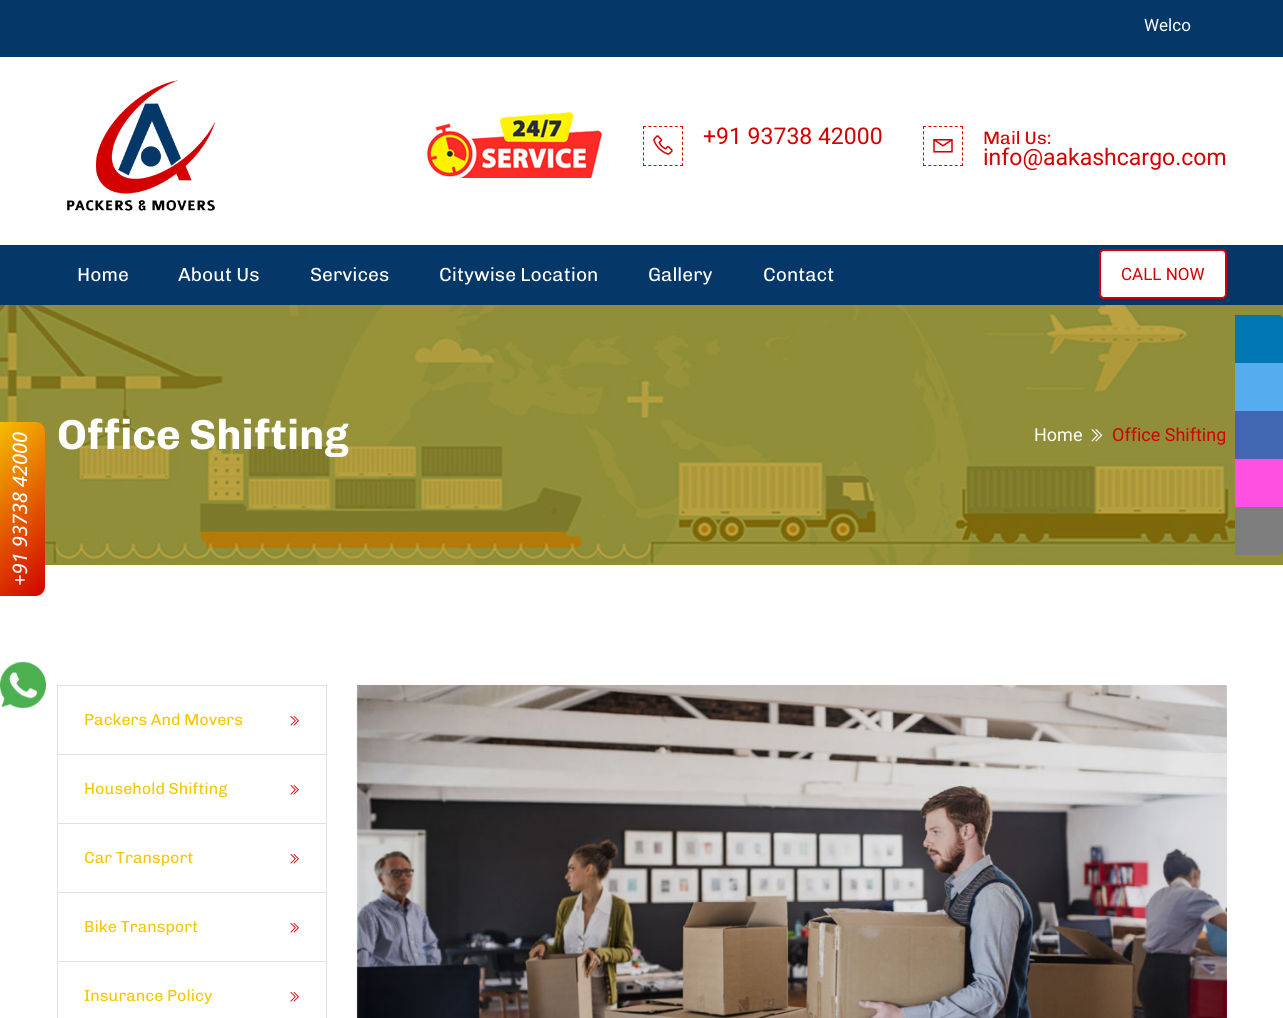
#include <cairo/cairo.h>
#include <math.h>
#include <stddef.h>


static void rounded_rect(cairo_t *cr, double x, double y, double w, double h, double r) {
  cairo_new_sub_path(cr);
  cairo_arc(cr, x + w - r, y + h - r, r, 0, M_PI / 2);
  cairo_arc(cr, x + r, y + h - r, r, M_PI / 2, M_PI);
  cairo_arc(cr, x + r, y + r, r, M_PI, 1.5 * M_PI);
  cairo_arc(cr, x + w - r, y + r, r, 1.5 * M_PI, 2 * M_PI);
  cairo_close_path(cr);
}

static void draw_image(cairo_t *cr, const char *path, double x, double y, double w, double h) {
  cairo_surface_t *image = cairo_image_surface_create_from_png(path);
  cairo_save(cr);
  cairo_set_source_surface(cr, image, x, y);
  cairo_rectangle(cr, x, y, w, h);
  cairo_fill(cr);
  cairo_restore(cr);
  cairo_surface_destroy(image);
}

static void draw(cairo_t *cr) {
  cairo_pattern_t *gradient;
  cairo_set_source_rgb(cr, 1, 1, 1);
  cairo_paint(cr);
  cairo_set_source_rgb(cr, 5 / 255.0, 55 / 255.0, 104 / 255.0);
  cairo_rectangle(cr, 0, 0, 1283, 57);
  cairo_fill(cr);
  draw_image(cr, "images/1.png", 67, 80, 149, 131);
  draw_image(cr, "images/2.png", 427, 112, 175, 66);
  cairo_new_path(cr);
  cairo_move_to(cr, 643, 126.5);
  cairo_line_to(cr, 683, 126.5);
  cairo_move_to(cr, 682.5, 126);
  cairo_line_to(cr, 682.5, 166);
  cairo_move_to(cr, 643, 165.5);
  cairo_line_to(cr, 683, 165.5);
  cairo_move_to(cr, 643.5, 126);
  cairo_line_to(cr, 643.5, 166);
  cairo_set_source_rgb(cr, 210 / 255.0, 0, 0);
  cairo_set_line_width(cr, 1);
  cairo_set_dash(cr, (double[]){3, 2.29}, 2, 0);
  cairo_stroke(cr);
  draw_image(cr, "images/3.png", 653, 135, 20, 20);
  cairo_new_path(cr);
  cairo_move_to(cr, 923, 126.5);
  cairo_line_to(cr, 963, 126.5);
  cairo_move_to(cr, 962.5, 126);
  cairo_line_to(cr, 962.5, 166);
  cairo_move_to(cr, 923, 165.5);
  cairo_line_to(cr, 963, 165.5);
  cairo_move_to(cr, 923.5, 126);
  cairo_line_to(cr, 923.5, 166);
  cairo_stroke(cr);
  draw_image(cr, "images/4.png", 933, 139, 20, 14);
  cairo_set_source_rgb(cr, 5 / 255.0, 55 / 255.0, 104 / 255.0);
  cairo_rectangle(cr, 0, 245, 1283, 60);
  cairo_fill(cr);
  cairo_set_source_rgb(cr, 1, 1, 1);
  rounded_rect(cr, 1100, 250, 126, 48, 4);
  cairo_fill_preserve(cr);
  cairo_set_source_rgb(cr, 210 / 255.0, 0, 0);
  cairo_set_line_width(cr, 2);
  cairo_set_dash(cr, NULL, 0, 0);
  cairo_stroke(cr);
  draw_image(cr, "images/5.png", 0, 305, 1283, 260);
  gradient = cairo_pattern_create_linear(75, 567, -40, 452);
  cairo_pattern_add_color_stop_rgba(gradient, 0, 210 / 255.0, 0, 0, 1);
  cairo_pattern_add_color_stop_rgba(gradient, 1, 247 / 255.0, 198 / 255.0, 0, 1);
  cairo_set_source(cr, gradient);
  cairo_pattern_destroy(gradient);
  cairo_new_path(cr);
  cairo_move_to(cr, -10, 586);
  cairo_line_to(cr, -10, 432);
  cairo_curve_to(cr, -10, 426, -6, 422, 0, 422);
  cairo_line_to(cr, 35, 422);
  cairo_curve_to(cr, 41, 422, 45, 426, 45, 432);
  cairo_line_to(cr, 45, 586);
  cairo_curve_to(cr, 45, 592, 41, 596, 35, 596);
  cairo_line_to(cr, 0, 596);
  cairo_curve_to(cr, -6, 596, -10, 592, -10, 586);
  cairo_close_path(cr);
  cairo_fill(cr);
  draw_image(cr, "images/6.png", 1091, 429, 12, 13);
  cairo_set_source_rgb(cr, 0, 119 / 255.0, 181 / 255.0);
  cairo_new_path(cr);
  cairo_move_to(cr, 1235, 315);
  cairo_line_to(cr, 1279, 315);
  cairo_curve_to(cr, 1281, 315, 1283, 317, 1283, 319);
  cairo_line_to(cr, 1283, 363);
  cairo_line_to(cr, 1235, 363);
  cairo_close_path(cr);
  cairo_fill(cr);
  cairo_set_source_rgb(cr, 85 / 255.0, 172 / 255.0, 238 / 255.0);
  cairo_rectangle(cr, 1235, 363, 48, 48);
  cairo_fill(cr);
  cairo_set_source_rgb(cr, 66 / 255.0, 103 / 255.0, 178 / 255.0);
  cairo_rectangle(cr, 1235, 411, 48, 48);
  cairo_fill(cr);
  cairo_set_source_rgb(cr, 1, 80 / 255.0, 226 / 255.0);
  cairo_rectangle(cr, 1235, 459, 48, 48);
  cairo_fill(cr);
  cairo_set_source_rgb(cr, 125 / 255.0, 125 / 255.0, 125 / 255.0);
  cairo_new_path(cr);
  cairo_move_to(cr, 1235, 507);
  cairo_line_to(cr, 1283, 507);
  cairo_line_to(cr, 1283, 551);
  cairo_curve_to(cr, 1283, 553, 1281, 555, 1279, 555);
  cairo_line_to(cr, 1235, 555);
  cairo_close_path(cr);
  cairo_fill(cr);
  draw_image(cr, "images/7.png", 0, 661, 46, 47);
  cairo_rectangle(cr, 57.5, 685.5, 269, 69);
  cairo_set_source_rgb(cr, 225 / 255.0, 225 / 255.0, 225 / 255.0);
  cairo_set_line_width(cr, 1);
  cairo_stroke(cr);
  draw_image(cr, "images/8.png", 290, 715, 9, 11);
  cairo_rectangle(cr, 57.5, 754.5, 269, 69);
  cairo_stroke(cr);
  draw_image(cr, "images/8.png", 290, 784, 9, 11);
  cairo_rectangle(cr, 57.5, 823.5, 269, 69);
  cairo_stroke(cr);
  draw_image(cr, "images/8.png", 290, 853, 9, 11);
  cairo_rectangle(cr, 57.5, 892.5, 269, 69);
  cairo_stroke(cr);
  draw_image(cr, "images/8.png", 290, 922, 9, 11);
  cairo_rectangle(cr, 57.5, 961.5, 269, 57);
  cairo_stroke(cr);
  draw_image(cr, "images/8.png", 290, 991, 9, 11);
  draw_image(cr, "images/9.png", 356, 685, 871, 333);
  cairo_select_font_face(cr, "Roboto", CAIRO_FONT_SLANT_NORMAL, CAIRO_FONT_WEIGHT_NORMAL);
  cairo_set_font_size(cr, 17);
  cairo_set_source_rgb(cr, 1, 1, 1);
  cairo_move_to(cr, 1144, 31);
  cairo_show_text(cr, "Welco");
  cairo_set_font_size(cr, 23);
  cairo_set_source_rgb(cr, 210 / 255.0, 0, 0);
  cairo_move_to(cr, 703, 144);
  cairo_show_text(cr, "+91 93738 42000");
  cairo_select_font_face(cr, "Chivo", CAIRO_FONT_SLANT_NORMAL, CAIRO_FONT_WEIGHT_NORMAL);
  cairo_set_font_size(cr, 18);
  cairo_move_to(cr, 983, 144);
  cairo_show_text(cr, "Mail Us:");
  cairo_select_font_face(cr, "Roboto", CAIRO_FONT_SLANT_NORMAL, CAIRO_FONT_WEIGHT_NORMAL);
  cairo_set_font_size(cr, 23);
  cairo_move_to(cr, 983, 165);
  cairo_show_text(cr, "info@aakashcargo.com");
  cairo_select_font_face(cr, "Chivo", CAIRO_FONT_SLANT_NORMAL, CAIRO_FONT_WEIGHT_NORMAL);
  cairo_set_font_size(cr, 19);
  cairo_set_source_rgb(cr, 1, 1, 1);
  cairo_move_to(cr, 77, 281);
  cairo_show_text(cr, "Home");
  cairo_move_to(cr, 178, 281);
  cairo_show_text(cr, "About Us");
  cairo_move_to(cr, 310, 281);
  cairo_show_text(cr, "Services");
  cairo_move_to(cr, 439, 281);
  cairo_show_text(cr, "Citywise Location");
  cairo_move_to(cr, 648, 281);
  cairo_show_text(cr, "Gallery");
  cairo_move_to(cr, 763, 281);
  cairo_show_text(cr, "Contact");
  cairo_select_font_face(cr, "Roboto", CAIRO_FONT_SLANT_NORMAL, CAIRO_FONT_WEIGHT_NORMAL);
  cairo_set_font_size(cr, 17);
  cairo_set_source_rgb(cr, 210 / 255.0, 0, 0);
  cairo_move_to(cr, 1121, 280);
  cairo_show_text(cr, "CALL NOW");
  cairo_select_font_face(cr, "Open Sans Medium", CAIRO_FONT_SLANT_ITALIC, CAIRO_FONT_WEIGHT_NORMAL);
  cairo_set_font_size(cr, 20);
  cairo_set_source_rgb(cr, 1, 1, 1);
  cairo_save(cr);
  cairo_translate(cr, 27, 586);
  cairo_rotate(cr, -90 * M_PI / 180);
  cairo_move_to(cr, 0, 0);
  cairo_show_text(cr, "+91 93738 42000");
  cairo_restore(cr);
  cairo_select_font_face(cr, "Chivo", CAIRO_FONT_SLANT_NORMAL, CAIRO_FONT_WEIGHT_BOLD);
  cairo_set_font_size(cr, 42);
  cairo_move_to(cr, 57, 449);
  cairo_show_text(cr, "Office Shifting");
  cairo_select_font_face(cr, "Roboto", CAIRO_FONT_SLANT_NORMAL, CAIRO_FONT_WEIGHT_NORMAL);
  cairo_set_font_size(cr, 18);
  cairo_move_to(cr, 1034, 441);
  cairo_show_text(cr, "Home");
  cairo_set_source_rgb(cr, 210 / 255.0, 0, 0);
  cairo_move_to(cr, 1112, 441);
  cairo_show_text(cr, "Office Shifting");
  cairo_select_font_face(cr, "Chivo", CAIRO_FONT_SLANT_NORMAL, CAIRO_FONT_WEIGHT_NORMAL);
  cairo_set_font_size(cr, 16);
  cairo_set_source_rgb(cr, 247 / 255.0, 198 / 255.0, 0);
  cairo_move_to(cr, 84, 725);
  cairo_show_text(cr, "Packers And Movers");
  cairo_move_to(cr, 84, 794);
  cairo_show_text(cr, "Household Shifting");
  cairo_move_to(cr, 84, 863);
  cairo_show_text(cr, "Car Transport");
  cairo_move_to(cr, 84, 932);
  cairo_show_text(cr, "Bike Transport");
  cairo_move_to(cr, 84, 1001);
  cairo_show_text(cr, "Insurance Policy");
}

int main(void) {
  cairo_surface_t *surface = cairo_image_surface_create(CAIRO_FORMAT_RGB24, 1283, 1018);
  cairo_t *cr = cairo_create(surface);
  cairo_font_options_t *options = cairo_font_options_create();
  cairo_font_options_set_hint_metrics(options, CAIRO_HINT_METRICS_OFF);
  cairo_font_options_set_hint_style(options, CAIRO_HINT_STYLE_NONE);
  cairo_set_font_options(cr, options);
  cairo_set_miter_limit(cr, 4);
  draw(cr);
  cairo_surface_write_to_png(surface, "out.png");
  cairo_font_options_destroy(options);
  cairo_destroy(cr);
  cairo_surface_destroy(surface);
  return 0;
}
